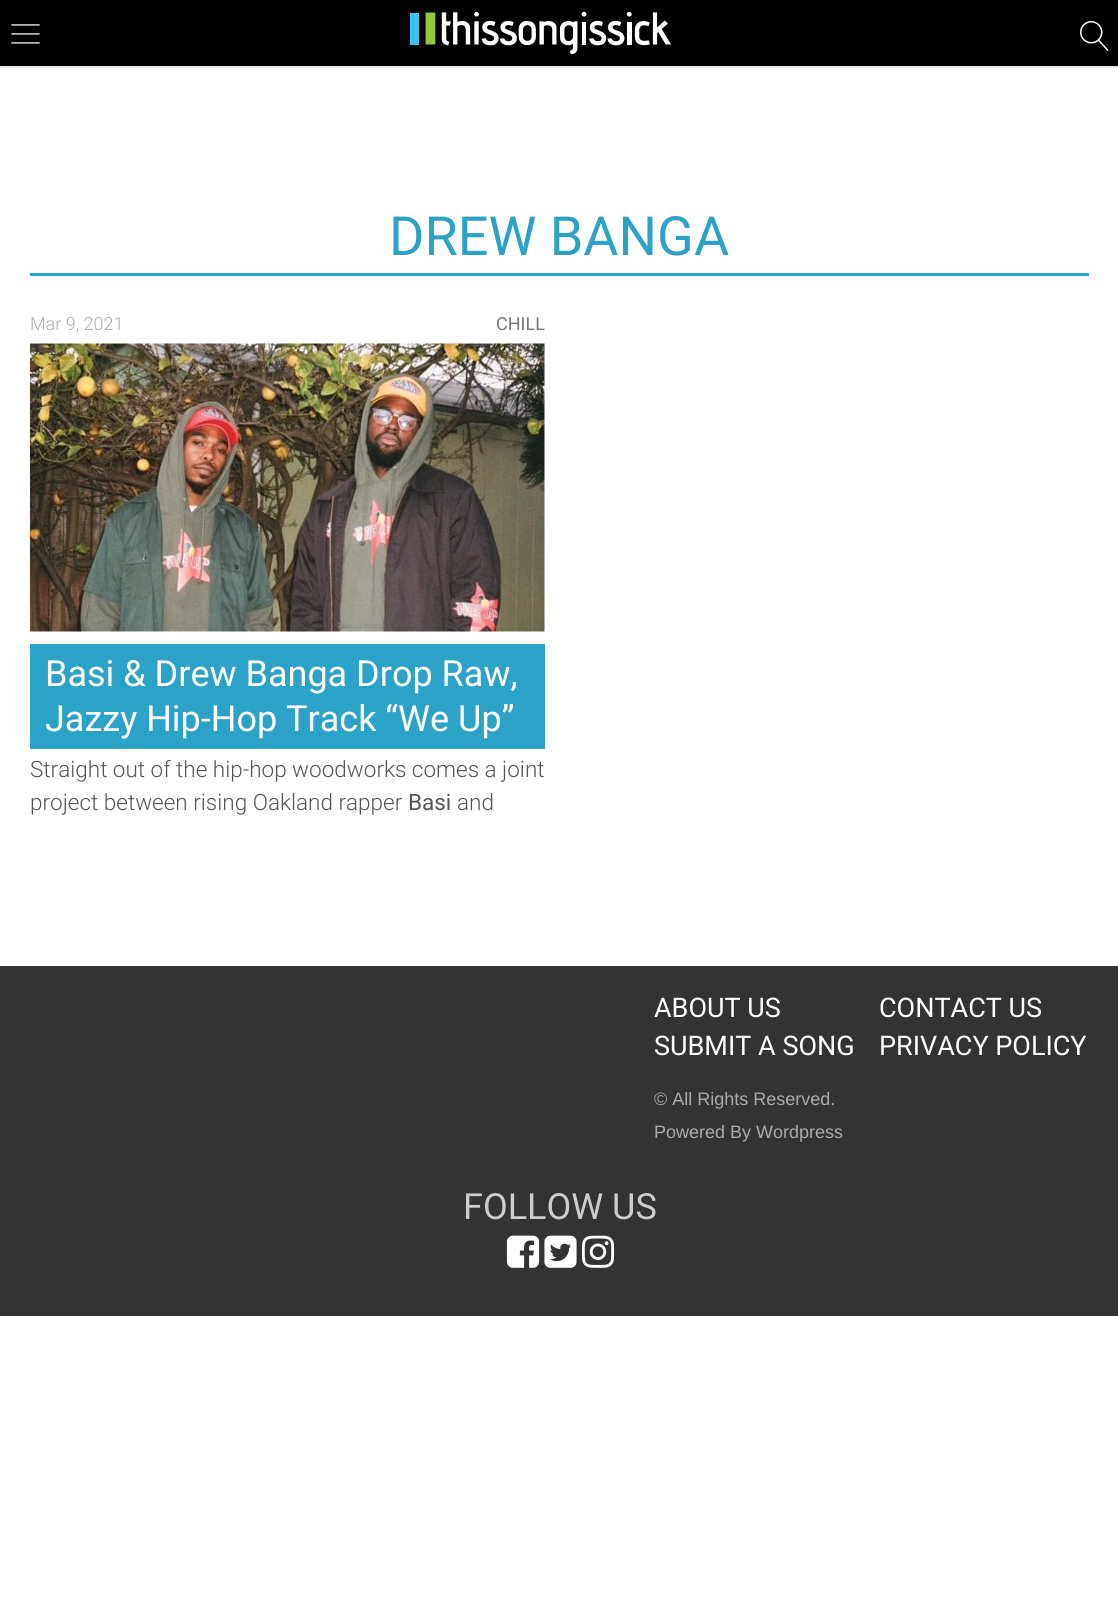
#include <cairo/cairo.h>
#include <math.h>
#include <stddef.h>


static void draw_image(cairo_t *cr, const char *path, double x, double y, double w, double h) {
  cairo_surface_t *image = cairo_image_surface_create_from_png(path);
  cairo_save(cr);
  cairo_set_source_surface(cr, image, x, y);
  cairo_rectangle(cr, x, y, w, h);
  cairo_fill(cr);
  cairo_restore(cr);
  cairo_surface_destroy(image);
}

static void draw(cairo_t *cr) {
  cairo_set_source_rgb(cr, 1, 1, 1);
  cairo_paint(cr);
  cairo_set_source_rgb(cr, 0, 0, 0);
  cairo_rectangle(cr, 0, 0, 1118, 66);
  cairo_fill(cr);
  cairo_set_source_rgb(cr, 231 / 255.0, 231 / 255.0, 231 / 255.0);
  cairo_rectangle(cr, 0, 66, 1118, 2);
  cairo_fill(cr);
  draw_image(cr, "images/1.png", 11, 24, 29, 20);
  draw_image(cr, "images/2.png", 410, 11, 261, 44);
  draw_image(cr, "images/3.png", 1080, 21, 29, 30);
  cairo_set_source_rgb(cr, 45 / 255.0, 162 / 255.0, 200 / 255.0);
  cairo_rectangle(cr, 30, 273, 1059, 3);
  cairo_fill(cr);
  draw_image(cr, "images/4.png", 30, 343, 515, 289);
  cairo_rectangle(cr, 30, 644, 515, 105);
  cairo_fill(cr);
  cairo_set_source_rgb(cr, 51 / 255.0, 51 / 255.0, 51 / 255.0);
  cairo_rectangle(cr, 0, 966, 1118, 350);
  cairo_fill(cr);
  draw_image(cr, "images/5.png", 506, 1235, 34, 33);
  draw_image(cr, "images/6.png", 544, 1235, 33, 33);
  draw_image(cr, "images/7.png", 581, 1235, 34, 33);
  cairo_select_font_face(cr, "Roboto", CAIRO_FONT_SLANT_NORMAL, CAIRO_FONT_WEIGHT_NORMAL);
  cairo_set_font_size(cr, 54);
  cairo_set_source_rgb(cr, 45 / 255.0, 162 / 255.0, 200 / 255.0);
  cairo_move_to(cr, 389, 255);
  cairo_show_text(cr, "DREW BANGA");
  cairo_select_font_face(cr, "Roboto Light", CAIRO_FONT_SLANT_NORMAL, CAIRO_FONT_WEIGHT_NORMAL);
  cairo_set_font_size(cr, 18);
  cairo_set_source_rgb(cr, 170 / 255.0, 170 / 255.0, 170 / 255.0);
  cairo_move_to(cr, 30, 330);
  cairo_show_text(cr, "Mar 9, 2021");
  cairo_select_font_face(cr, "Roboto", CAIRO_FONT_SLANT_NORMAL, CAIRO_FONT_WEIGHT_NORMAL);
  cairo_set_source_rgb(cr, 119 / 255.0, 119 / 255.0, 119 / 255.0);
  cairo_move_to(cr, 496, 330);
  cairo_show_text(cr, "CHILL");
  cairo_set_font_size(cr, 36);
  cairo_set_source_rgb(cr, 1, 1, 1);
  cairo_move_to(cr, 45, 686);
  cairo_show_text(cr, "Basi & Drew Banga Drop Raw,");
  cairo_move_to(cr, 45, 731);
  cairo_show_text(cr, "Jazzy Hip-Hop Track “We Up”");
  cairo_select_font_face(cr, "Roboto Light", CAIRO_FONT_SLANT_NORMAL, CAIRO_FONT_WEIGHT_NORMAL);
  cairo_set_font_size(cr, 22.5);
  cairo_set_source_rgb(cr, 85 / 255.0, 85 / 255.0, 85 / 255.0);
  cairo_move_to(cr, 30, 777);
  cairo_show_text(cr, "Straight out of the hip-hop woodworks comes a joint");
  cairo_move_to(cr, 30, 810);
  cairo_show_text(cr, "project between rising Oakland rapper");
  cairo_select_font_face(cr, "Roboto", CAIRO_FONT_SLANT_NORMAL, CAIRO_FONT_WEIGHT_NORMAL);
  cairo_move_to(cr, 408, 810);
  cairo_show_text(cr, "Basi");
  cairo_select_font_face(cr, "Roboto Light", CAIRO_FONT_SLANT_NORMAL, CAIRO_FONT_WEIGHT_NORMAL);
  cairo_move_to(cr, 457, 810);
  cairo_show_text(cr, "and");
  cairo_select_font_face(cr, "Roboto", CAIRO_FONT_SLANT_NORMAL, CAIRO_FONT_WEIGHT_NORMAL);
  cairo_set_font_size(cr, 27);
  cairo_set_source_rgb(cr, 1, 1, 1);
  cairo_move_to(cr, 654, 1017);
  cairo_show_text(cr, "ABOUT US");
  cairo_move_to(cr, 879, 1017);
  cairo_show_text(cr, "CONTACT US");
  cairo_move_to(cr, 654, 1055);
  cairo_show_text(cr, "SUBMIT A SONG");
  cairo_move_to(cr, 879, 1055);
  cairo_show_text(cr, "PRIVACY POLICY");
  cairo_select_font_face(cr, "Liberation Sans", CAIRO_FONT_SLANT_NORMAL, CAIRO_FONT_WEIGHT_NORMAL);
  cairo_set_font_size(cr, 18);
  cairo_set_source_rgb(cr, 170 / 255.0, 170 / 255.0, 170 / 255.0);
  cairo_move_to(cr, 654, 1105);
  cairo_show_text(cr, "© All Rights Reserved.");
  cairo_move_to(cr, 654, 1138);
  cairo_show_text(cr, "Powered By Wordpress");
  cairo_select_font_face(cr, "Roboto", CAIRO_FONT_SLANT_NORMAL, CAIRO_FONT_WEIGHT_NORMAL);
  cairo_set_font_size(cr, 36);
  cairo_set_source_rgb(cr, 204 / 255.0, 204 / 255.0, 204 / 255.0);
  cairo_move_to(cr, 463, 1219);
  cairo_show_text(cr, "FOLLOW US");
}

int main(void) {
  cairo_surface_t *surface = cairo_image_surface_create(CAIRO_FORMAT_RGB24, 1118, 1609);
  cairo_t *cr = cairo_create(surface);
  cairo_font_options_t *options = cairo_font_options_create();
  cairo_font_options_set_hint_metrics(options, CAIRO_HINT_METRICS_OFF);
  cairo_font_options_set_hint_style(options, CAIRO_HINT_STYLE_NONE);
  cairo_set_font_options(cr, options);
  cairo_set_miter_limit(cr, 4);
  draw(cr);
  cairo_surface_write_to_png(surface, "out.png");
  cairo_font_options_destroy(options);
  cairo_destroy(cr);
  cairo_surface_destroy(surface);
  return 0;
}
